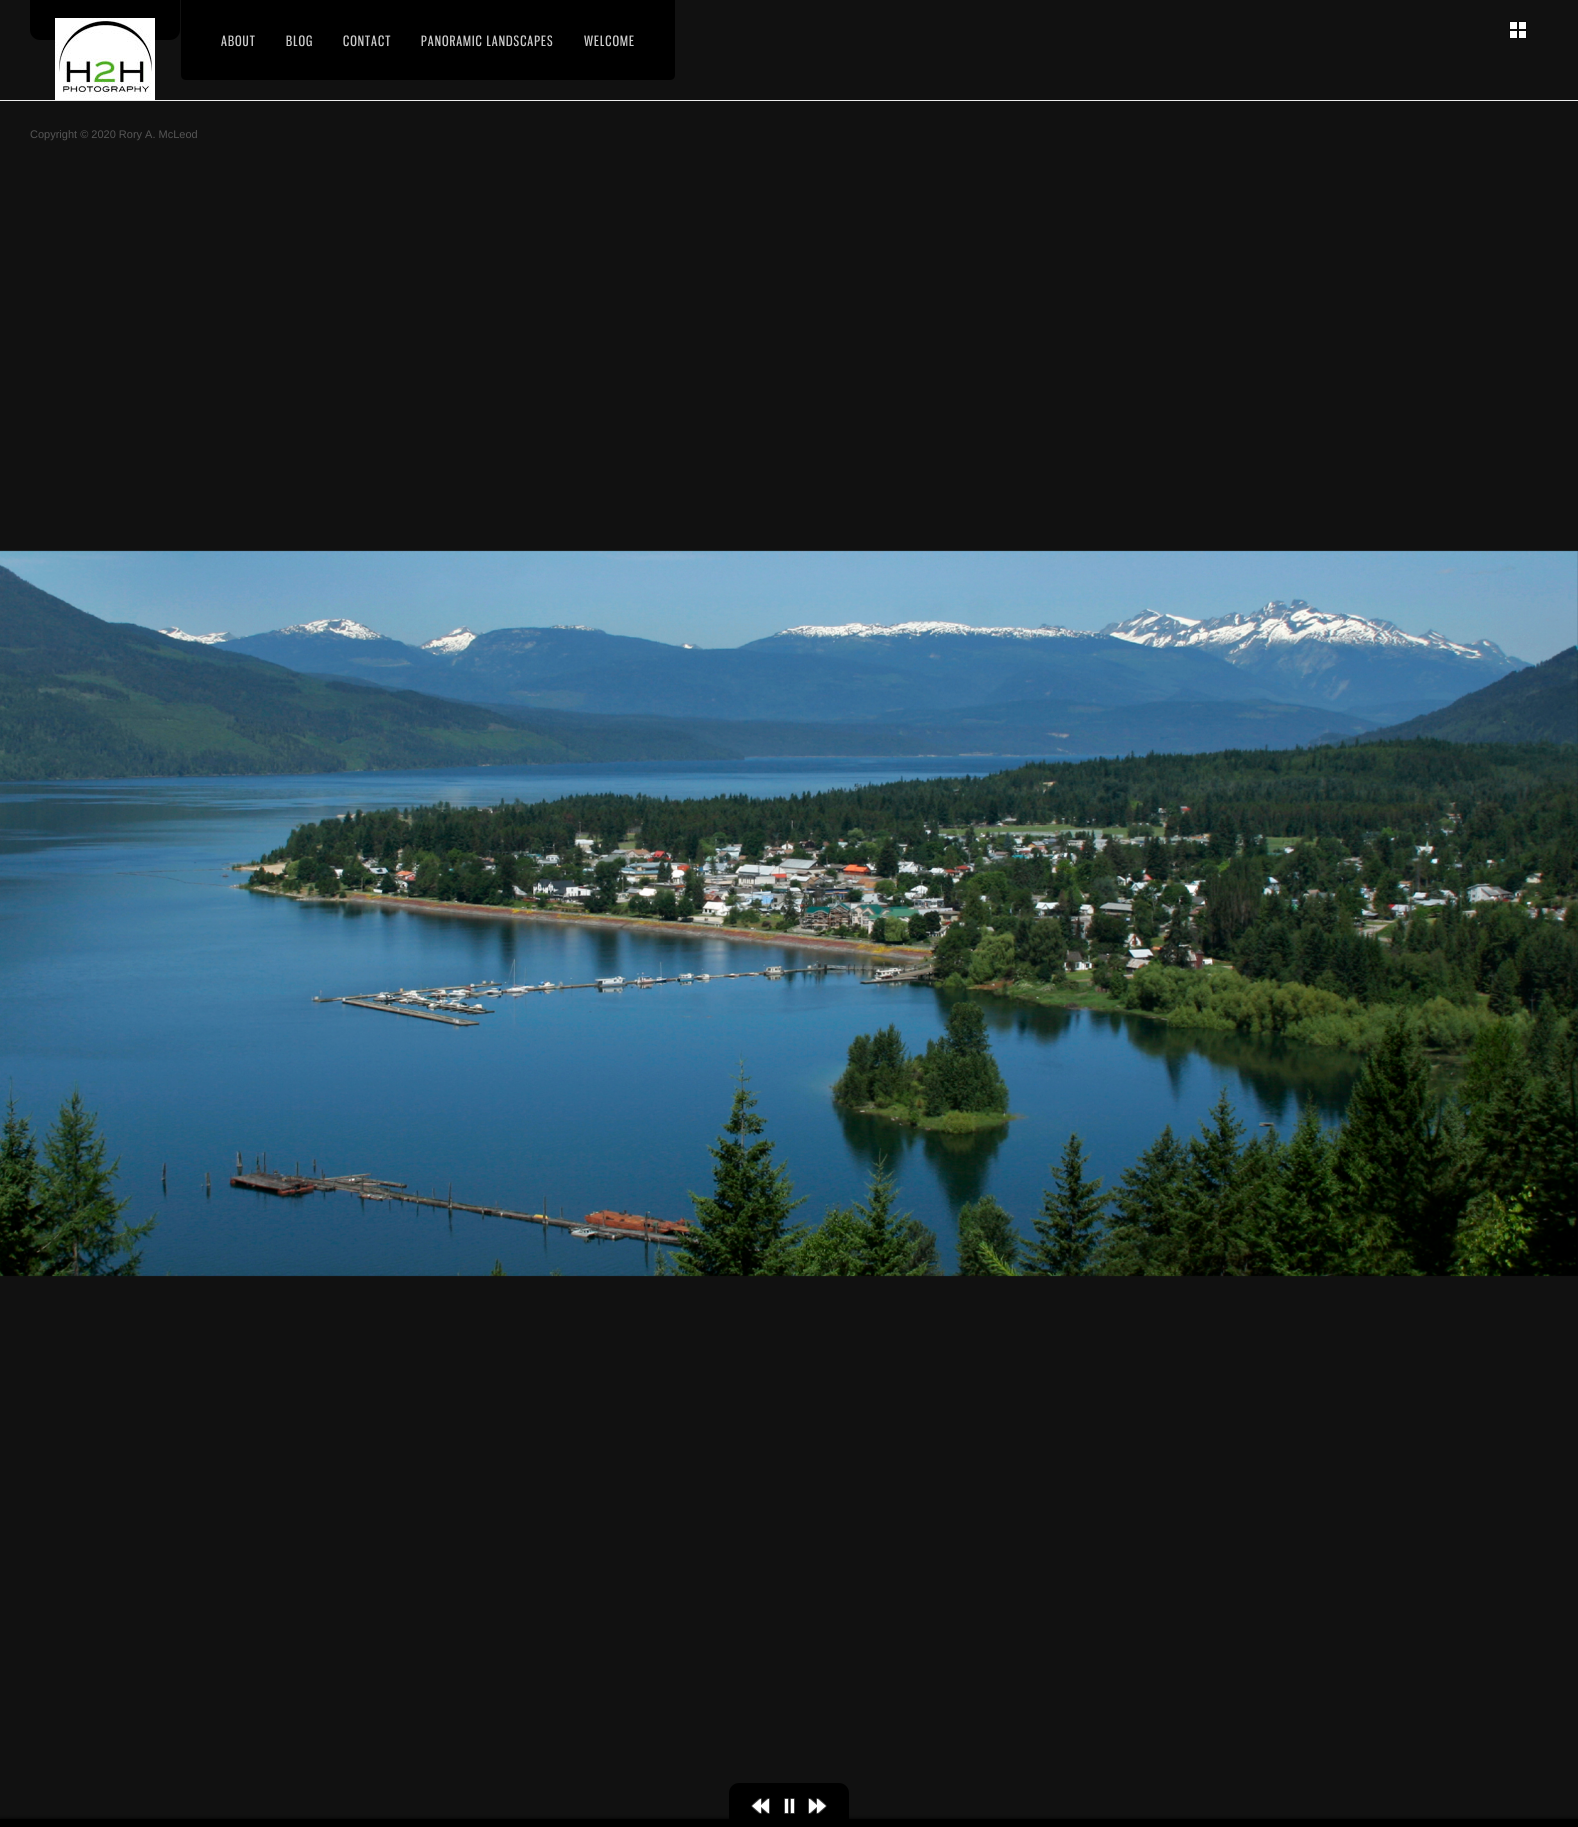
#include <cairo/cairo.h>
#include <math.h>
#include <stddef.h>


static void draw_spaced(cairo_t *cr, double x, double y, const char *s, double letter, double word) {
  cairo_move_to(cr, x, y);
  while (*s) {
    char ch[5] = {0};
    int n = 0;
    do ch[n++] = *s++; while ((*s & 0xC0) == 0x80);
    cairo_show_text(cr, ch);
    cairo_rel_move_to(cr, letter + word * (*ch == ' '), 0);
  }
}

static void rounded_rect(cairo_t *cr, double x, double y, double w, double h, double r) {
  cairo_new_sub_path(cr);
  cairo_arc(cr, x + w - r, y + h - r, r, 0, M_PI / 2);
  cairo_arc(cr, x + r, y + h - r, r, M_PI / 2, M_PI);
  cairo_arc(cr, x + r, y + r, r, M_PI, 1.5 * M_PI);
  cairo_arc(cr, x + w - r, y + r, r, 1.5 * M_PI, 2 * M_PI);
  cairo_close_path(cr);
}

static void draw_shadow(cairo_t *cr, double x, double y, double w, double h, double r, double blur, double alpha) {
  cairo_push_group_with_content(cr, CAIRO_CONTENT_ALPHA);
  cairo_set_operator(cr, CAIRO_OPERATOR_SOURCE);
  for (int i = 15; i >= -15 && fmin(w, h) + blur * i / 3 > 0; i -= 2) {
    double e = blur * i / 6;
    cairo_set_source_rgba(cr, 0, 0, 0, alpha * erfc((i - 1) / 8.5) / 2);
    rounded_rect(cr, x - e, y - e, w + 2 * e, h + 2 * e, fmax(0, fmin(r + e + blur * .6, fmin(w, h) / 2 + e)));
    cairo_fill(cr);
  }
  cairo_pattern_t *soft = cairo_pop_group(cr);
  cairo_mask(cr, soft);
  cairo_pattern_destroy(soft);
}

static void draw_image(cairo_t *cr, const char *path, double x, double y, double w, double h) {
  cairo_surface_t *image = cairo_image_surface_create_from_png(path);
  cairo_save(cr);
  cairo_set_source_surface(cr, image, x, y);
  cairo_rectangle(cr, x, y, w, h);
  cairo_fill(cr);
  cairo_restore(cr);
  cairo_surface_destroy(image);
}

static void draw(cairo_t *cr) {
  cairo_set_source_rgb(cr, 17 / 255.0, 17 / 255.0, 17 / 255.0);
  cairo_paint(cr);
  cairo_set_source_rgb(cr, 0, 0, 0);
  cairo_new_path(cr);
  cairo_move_to(cr, 30, 0);
  cairo_line_to(cr, 180, 0);
  cairo_line_to(cr, 180, 30);
  cairo_curve_to(cr, 180, 35.5, 175.5, 40, 170, 40);
  cairo_line_to(cr, 40, 40);
  cairo_curve_to(cr, 34.5, 40, 30, 35.5, 30, 30);
  cairo_close_path(cr);
  cairo_fill(cr);
  draw_image(cr, "images/1.png", 55, 18, 100, 82);
  cairo_new_path(cr);
  cairo_move_to(cr, 181, 0);
  cairo_line_to(cr, 675, 0);
  cairo_line_to(cr, 675, 75);
  cairo_curve_to(cr, 675, 78, 673, 80, 670, 80);
  cairo_line_to(cr, 186, 80);
  cairo_curve_to(cr, 183, 80, 181, 78, 181, 75);
  cairo_close_path(cr);
  cairo_fill(cr);
  cairo_set_source_rgb(cr, 0, 0, 0);
  draw_shadow(cr, 0, 1819, 1578, 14, 0, 2, 1);
  cairo_set_source_rgb(cr, 0, 0, 0);
  cairo_rectangle(cr, 0, 1819, 1578, 8);
  cairo_fill(cr);
  cairo_new_path(cr);
  cairo_move_to(cr, 739, 1783);
  cairo_line_to(cr, 839, 1783);
  cairo_curve_to(cr, 844.5, 1783, 849, 1787.5, 849, 1793);
  cairo_line_to(cr, 849, 1827);
  cairo_line_to(cr, 729, 1827);
  cairo_line_to(cr, 729, 1793);
  cairo_curve_to(cr, 729, 1787.5, 733.5, 1783, 739, 1783);
  cairo_close_path(cr);
  cairo_fill(cr);
  draw_image(cr, "images/2.png", 1509, 21, 18, 18);
  draw_image(cr, "images/3.png", 751, 1798, 19, 16);
  draw_image(cr, "images/4.png", 784, 1798, 11, 16);
  draw_image(cr, "images/5.png", 808, 1798, 19, 16);
  cairo_set_source_rgb(cr, 238 / 255.0, 238 / 255.0, 238 / 255.0);
  cairo_rectangle(cr, 0, 100, 1578, 1);
  cairo_fill(cr);
  draw_image(cr, "images/6.png", 0, 550, 1578, 727);
  cairo_select_font_face(cr, "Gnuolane", CAIRO_FONT_SLANT_NORMAL, CAIRO_FONT_WEIGHT_NORMAL);
  cairo_set_font_size(cr, 14);
  cairo_set_source_rgb(cr, 204 / 255.0, 204 / 255.0, 204 / 255.0);
  draw_spaced(cr, 221, 46, "ABOUT", 1, 0);
  draw_spaced(cr, 286, 46, "BLOG", 1, 0);
  draw_spaced(cr, 343, 46, "CONTACT", 1, 0);
  draw_spaced(cr, 421, 46, "PANORAMIC LANDSCAPES", 1, 0);
  draw_spaced(cr, 584, 46, "WELCOME", 1, 0);
  cairo_select_font_face(cr, "Liberation Sans", CAIRO_FONT_SLANT_NORMAL, CAIRO_FONT_WEIGHT_NORMAL);
  cairo_set_font_size(cr, 11);
  cairo_set_source_rgb(cr, 85 / 255.0, 85 / 255.0, 85 / 255.0);
  cairo_move_to(cr, 30, 138);
  cairo_show_text(cr, "Copyright © 2020 Rory A. McLeod");
}

int main(void) {
  cairo_surface_t *surface = cairo_image_surface_create(CAIRO_FORMAT_RGB24, 1578, 1827);
  cairo_t *cr = cairo_create(surface);
  cairo_font_options_t *options = cairo_font_options_create();
  cairo_font_options_set_hint_metrics(options, CAIRO_HINT_METRICS_OFF);
  cairo_font_options_set_hint_style(options, CAIRO_HINT_STYLE_NONE);
  cairo_set_font_options(cr, options);
  cairo_set_miter_limit(cr, 4);
  draw(cr);
  cairo_surface_write_to_png(surface, "out.png");
  cairo_font_options_destroy(options);
  cairo_destroy(cr);
  cairo_surface_destroy(surface);
  return 0;
}
